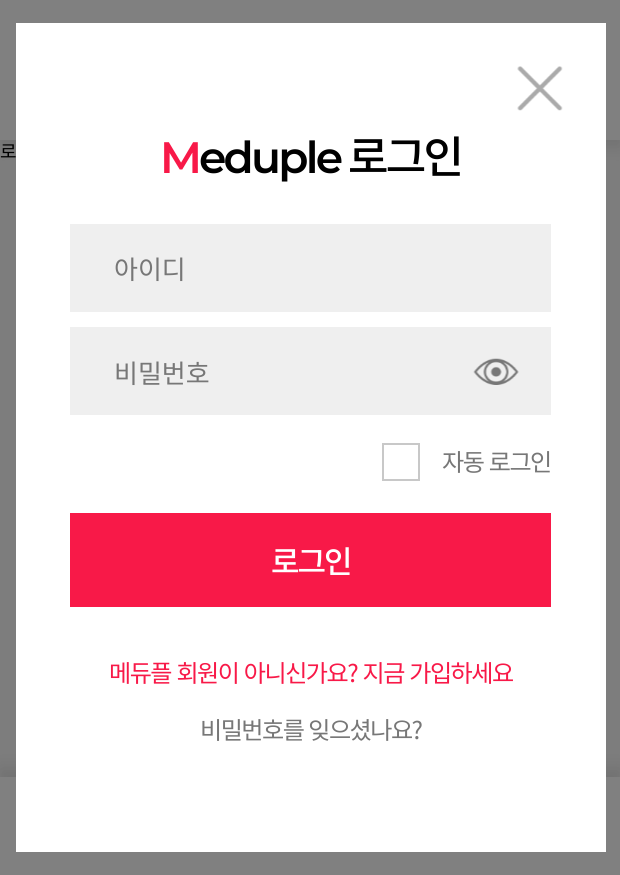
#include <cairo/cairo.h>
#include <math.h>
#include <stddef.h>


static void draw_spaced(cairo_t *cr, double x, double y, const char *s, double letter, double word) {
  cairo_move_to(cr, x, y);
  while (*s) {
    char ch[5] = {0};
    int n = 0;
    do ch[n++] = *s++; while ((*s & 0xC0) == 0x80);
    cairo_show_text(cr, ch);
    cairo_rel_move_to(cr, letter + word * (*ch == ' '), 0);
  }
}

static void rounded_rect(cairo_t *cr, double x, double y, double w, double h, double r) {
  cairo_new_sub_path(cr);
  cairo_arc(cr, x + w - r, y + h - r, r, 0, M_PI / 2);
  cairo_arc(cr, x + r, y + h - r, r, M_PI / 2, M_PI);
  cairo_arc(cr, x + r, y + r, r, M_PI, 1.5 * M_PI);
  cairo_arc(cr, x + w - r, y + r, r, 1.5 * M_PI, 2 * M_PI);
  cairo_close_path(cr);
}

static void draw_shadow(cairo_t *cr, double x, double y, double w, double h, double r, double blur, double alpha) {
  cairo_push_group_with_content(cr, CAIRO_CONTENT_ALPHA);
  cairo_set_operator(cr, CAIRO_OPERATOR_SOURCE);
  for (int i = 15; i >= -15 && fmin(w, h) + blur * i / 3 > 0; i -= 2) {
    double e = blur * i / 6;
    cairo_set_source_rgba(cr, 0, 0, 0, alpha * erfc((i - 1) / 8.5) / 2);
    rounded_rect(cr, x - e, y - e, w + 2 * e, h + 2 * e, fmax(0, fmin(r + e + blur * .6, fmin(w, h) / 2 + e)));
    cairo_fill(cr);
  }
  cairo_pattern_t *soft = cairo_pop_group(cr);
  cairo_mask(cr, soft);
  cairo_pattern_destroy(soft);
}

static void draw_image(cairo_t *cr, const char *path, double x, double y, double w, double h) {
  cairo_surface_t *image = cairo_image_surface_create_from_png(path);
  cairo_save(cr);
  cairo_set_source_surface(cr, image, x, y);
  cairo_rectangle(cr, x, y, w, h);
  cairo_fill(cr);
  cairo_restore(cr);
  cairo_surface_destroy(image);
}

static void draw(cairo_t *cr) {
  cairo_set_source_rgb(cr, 125 / 255.0, 125 / 255.0, 125 / 255.0);
  cairo_paint(cr);
  cairo_set_source_rgb(cr, 0, 0, 0);
  draw_shadow(cr, 0, 7, 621, 140, 0, 9, 0.1);
  cairo_set_source_rgb(cr, 128 / 255.0, 128 / 255.0, 128 / 255.0);
  cairo_rectangle(cr, 0, 0, 620, 140);
  cairo_fill(cr);
  cairo_set_source_rgb(cr, 0, 0, 0);
  draw_shadow(cr, 0, 768, 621, 98, 0, 9, 0.1);
  cairo_set_source_rgb(cr, 128 / 255.0, 128 / 255.0, 128 / 255.0);
  cairo_rectangle(cr, 0, 777, 620, 98);
  cairo_fill(cr);
  cairo_set_source_rgb(cr, 1, 1, 1);
  cairo_rectangle(cr, 16, 23, 590, 829);
  cairo_fill(cr);
  draw_image(cr, "images/1.png", 517, 66, 46, 45);
  cairo_set_source_rgb(cr, 239 / 255.0, 239 / 255.0, 239 / 255.0);
  cairo_rectangle(cr, 70, 224, 481, 88);
  cairo_fill(cr);
  cairo_rectangle(cr, 70, 327, 481, 88);
  cairo_fill(cr);
  draw_image(cr, "images/2.png", 473, 358, 46, 27);
  cairo_rectangle(cr, 383, 444, 36, 36);
  cairo_set_source_rgb(cr, 200 / 255.0, 200 / 255.0, 200 / 255.0);
  cairo_stroke(cr);
  cairo_set_source_rgb(cr, 248 / 255.0, 25 / 255.0, 72 / 255.0);
  cairo_rectangle(cr, 70, 513, 481, 94);
  cairo_fill(cr);
  cairo_select_font_face(cr, "Noto Sans KR", CAIRO_FONT_SLANT_NORMAL, CAIRO_FONT_WEIGHT_NORMAL);
  cairo_set_font_size(cr, 18);
  cairo_set_source_rgb(cr, 0, 0, 0);
  draw_spaced(cr, 0, 158, "로", 0, 1);
  cairo_select_font_face(cr, "Montserrat SemiBold", CAIRO_FONT_SLANT_NORMAL, CAIRO_FONT_WEIGHT_NORMAL);
  cairo_set_font_size(cr, 44);
  cairo_set_source_rgb(cr, 248 / 255.0, 25 / 255.0, 72 / 255.0);
  draw_spaced(cr, 160, 173, "M", -2.75, 0);
  cairo_set_source_rgb(cr, 0, 0, 0);
  draw_spaced(cr, 199, 173, "eduple", -2.75, 0);
  cairo_select_font_face(cr, "Noto Sans KR Medium", CAIRO_FONT_SLANT_NORMAL, CAIRO_FONT_WEIGHT_NORMAL);
  draw_spaced(cr, 348, 173, "로그인", -2.75, 0);
  cairo_select_font_face(cr, "Noto Sans KR", CAIRO_FONT_SLANT_NORMAL, CAIRO_FONT_WEIGHT_NORMAL);
  cairo_set_font_size(cr, 26);
  cairo_set_source_rgb(cr, 119 / 255.0, 119 / 255.0, 119 / 255.0);
  cairo_move_to(cr, 114, 279);
  cairo_show_text(cr, "아이디");
  cairo_move_to(cr, 114, 383);
  cairo_show_text(cr, "비밀번호");
  cairo_set_font_size(cr, 24.1);
  draw_spaced(cr, 442, 471, "자동 로그인", -1.5, 1.5);
  cairo_select_font_face(cr, "Noto Sans KR Medium", CAIRO_FONT_SLANT_NORMAL, CAIRO_FONT_WEIGHT_NORMAL);
  cairo_set_font_size(cr, 31);
  cairo_set_source_rgb(cr, 1, 1, 1);
  draw_spaced(cr, 271, 573, "로그인", -2, 0);
  cairo_select_font_face(cr, "Noto Sans KR", CAIRO_FONT_SLANT_NORMAL, CAIRO_FONT_WEIGHT_NORMAL);
  cairo_set_font_size(cr, 24.1);
  cairo_set_source_rgb(cr, 248 / 255.0, 25 / 255.0, 72 / 255.0);
  draw_spaced(cr, 109, 682, "메듀플 회원이 아니신가요? 지금 가입하세요", -1.5, 1.5);
  cairo_set_source_rgb(cr, 119 / 255.0, 119 / 255.0, 119 / 255.0);
  draw_spaced(cr, 200, 739, "비밀번호를 잊으셨나요?", -1.5, 1);
}

int main(void) {
  cairo_surface_t *surface = cairo_image_surface_create(CAIRO_FORMAT_RGB24, 620, 875);
  cairo_t *cr = cairo_create(surface);
  cairo_font_options_t *options = cairo_font_options_create();
  cairo_font_options_set_hint_metrics(options, CAIRO_HINT_METRICS_OFF);
  cairo_font_options_set_hint_style(options, CAIRO_HINT_STYLE_NONE);
  cairo_set_font_options(cr, options);
  cairo_set_miter_limit(cr, 4);
  draw(cr);
  cairo_surface_write_to_png(surface, "out.png");
  cairo_font_options_destroy(options);
  cairo_destroy(cr);
  cairo_surface_destroy(surface);
  return 0;
}
